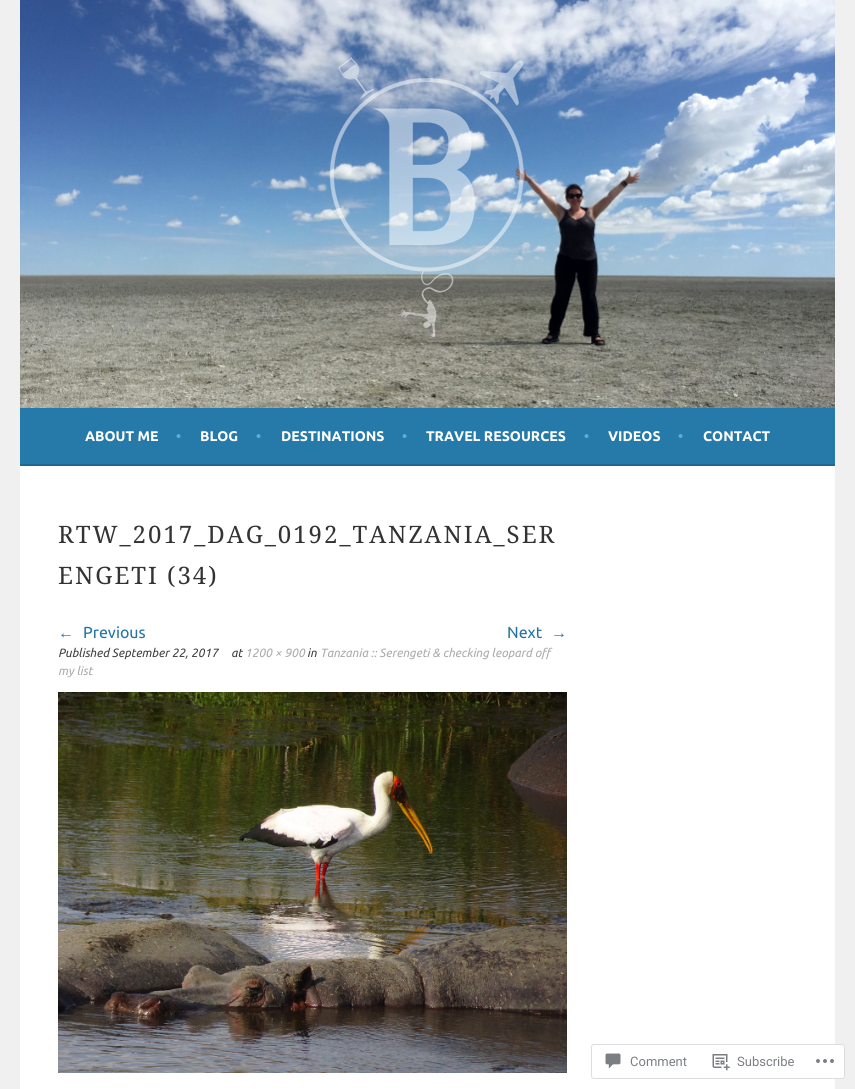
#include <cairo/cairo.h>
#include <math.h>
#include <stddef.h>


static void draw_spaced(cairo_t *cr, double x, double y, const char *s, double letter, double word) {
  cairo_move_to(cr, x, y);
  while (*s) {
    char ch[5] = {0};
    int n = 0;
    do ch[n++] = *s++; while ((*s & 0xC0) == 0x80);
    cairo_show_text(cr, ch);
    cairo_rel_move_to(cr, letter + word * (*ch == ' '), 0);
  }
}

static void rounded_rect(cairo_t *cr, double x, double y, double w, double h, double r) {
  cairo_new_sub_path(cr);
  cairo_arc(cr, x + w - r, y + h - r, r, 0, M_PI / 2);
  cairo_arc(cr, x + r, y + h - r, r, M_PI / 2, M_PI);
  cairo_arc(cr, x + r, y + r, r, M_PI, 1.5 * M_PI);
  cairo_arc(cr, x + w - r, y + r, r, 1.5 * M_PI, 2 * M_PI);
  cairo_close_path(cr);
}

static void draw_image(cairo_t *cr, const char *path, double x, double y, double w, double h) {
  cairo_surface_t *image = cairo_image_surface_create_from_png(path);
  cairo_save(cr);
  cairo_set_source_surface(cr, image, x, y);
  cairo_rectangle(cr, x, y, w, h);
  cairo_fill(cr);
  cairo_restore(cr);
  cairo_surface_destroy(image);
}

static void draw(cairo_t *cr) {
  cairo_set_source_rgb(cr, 240 / 255.0, 240 / 255.0, 240 / 255.0);
  cairo_paint(cr);
  draw_image(cr, "images/1.png", 20, 0, 815, 408);
  draw_image(cr, "images/2.png", 330, 57, 195, 280);
  cairo_set_source_rgb(cr, 38 / 255.0, 122 / 255.0, 170 / 255.0);
  cairo_rectangle(cr, 20, 408, 815, 56);
  cairo_fill(cr);
  cairo_set_source_rgb(cr, 32 / 255.0, 104 / 255.0, 145 / 255.0);
  cairo_rectangle(cr, 20, 464, 815, 2);
  cairo_fill(cr);
  cairo_set_source_rgb(cr, 1, 1, 1);
  cairo_rectangle(cr, 20, 466, 815, 623);
  cairo_fill(cr);
  draw_image(cr, "images/3.png", 58, 692, 509, 381);
  cairo_set_source_rgba(cr, 1, 1, 1, 0.98);
  rounded_rect(cr, 591, 1044, 254, 35, 3);
  cairo_fill(cr);
  rounded_rect(cr, 591.5, 1044.5, 253, 34, 2.5);
  cairo_set_source_rgba(cr, 220 / 255.0, 220 / 255.0, 222 / 255.0, 0.98);
  cairo_set_line_width(cr, 1);
  cairo_stroke(cr);
  draw_image(cr, "images/4.png", 605, 1053, 16, 16);
  draw_image(cr, "images/5.png", 712, 1054, 18, 17);
  draw_image(cr, "images/6.png", 816, 1059, 18, 4);
  cairo_select_font_face(cr, "Ubuntu", CAIRO_FONT_SLANT_NORMAL, CAIRO_FONT_WEIGHT_BOLD);
  cairo_set_font_size(cr, 14);
  cairo_set_source_rgb(cr, 1, 1, 1);
  cairo_move_to(cr, 85, 441);
  cairo_show_text(cr, "ABOUT ME");
  cairo_set_source_rgb(cr, 92 / 255.0, 172 / 255.0, 218 / 255.0);
  cairo_move_to(cr, 176, 441);
  cairo_show_text(cr, "•");
  cairo_set_source_rgb(cr, 1, 1, 1);
  cairo_move_to(cr, 200, 441);
  cairo_show_text(cr, "BLOG");
  cairo_set_source_rgb(cr, 92 / 255.0, 172 / 255.0, 218 / 255.0);
  cairo_move_to(cr, 256, 441);
  cairo_show_text(cr, "•");
  cairo_set_source_rgb(cr, 1, 1, 1);
  cairo_move_to(cr, 281, 441);
  cairo_show_text(cr, "DESTINATIONS");
  cairo_set_source_rgb(cr, 92 / 255.0, 172 / 255.0, 218 / 255.0);
  cairo_move_to(cr, 402, 441);
  cairo_show_text(cr, "•");
  cairo_set_source_rgb(cr, 1, 1, 1);
  cairo_move_to(cr, 426, 441);
  cairo_show_text(cr, "TRAVEL RESOURCES");
  cairo_set_source_rgb(cr, 92 / 255.0, 172 / 255.0, 218 / 255.0);
  cairo_move_to(cr, 584, 441);
  cairo_show_text(cr, "•");
  cairo_set_source_rgb(cr, 1, 1, 1);
  cairo_move_to(cr, 608, 441);
  cairo_show_text(cr, "VIDEOS");
  cairo_set_source_rgb(cr, 92 / 255.0, 172 / 255.0, 218 / 255.0);
  cairo_move_to(cr, 678, 441);
  cairo_show_text(cr, "•");
  cairo_set_source_rgb(cr, 1, 1, 1);
  cairo_move_to(cr, 703, 441);
  cairo_show_text(cr, "CONTACT");
  cairo_select_font_face(cr, "Noto Serif", CAIRO_FONT_SLANT_NORMAL, CAIRO_FONT_WEIGHT_NORMAL);
  cairo_set_font_size(cr, 24);
  cairo_set_source_rgb(cr, 51 / 255.0, 51 / 255.0, 51 / 255.0);
  draw_spaced(cr, 58, 543, "RTW_2017_DAG_0192_TANZANIA_SER", 2, 0);
  draw_spaced(cr, 58, 584, "ENGETI (34)", 2, 0);
  cairo_select_font_face(cr, "Liberation Sans", CAIRO_FONT_SLANT_NORMAL, CAIRO_FONT_WEIGHT_NORMAL);
  cairo_set_font_size(cr, 16);
  cairo_set_source_rgb(cr, 35 / 255.0, 116 / 255.0, 163 / 255.0);
  cairo_move_to(cr, 58, 638);
  cairo_show_text(cr, "←");
  cairo_select_font_face(cr, "Ubuntu", CAIRO_FONT_SLANT_NORMAL, CAIRO_FONT_WEIGHT_NORMAL);
  cairo_move_to(cr, 83, 638);
  cairo_show_text(cr, "Previous");
  cairo_move_to(cr, 507, 638);
  cairo_show_text(cr, "Next");
  cairo_select_font_face(cr, "Liberation Sans", CAIRO_FONT_SLANT_NORMAL, CAIRO_FONT_WEIGHT_NORMAL);
  cairo_move_to(cr, 551, 638);
  cairo_show_text(cr, "→");
  cairo_select_font_face(cr, "Ubuntu", CAIRO_FONT_SLANT_ITALIC, CAIRO_FONT_WEIGHT_NORMAL);
  cairo_set_font_size(cr, 12);
  cairo_set_source_rgb(cr, 64 / 255.0, 64 / 255.0, 64 / 255.0);
  cairo_move_to(cr, 58, 657);
  cairo_show_text(cr, "Published September 22, 2017");
  cairo_move_to(cr, 231, 657);
  cairo_show_text(cr, "at");
  cairo_set_source_rgb(cr, 170 / 255.0, 170 / 255.0, 170 / 255.0);
  cairo_move_to(cr, 245, 657);
  cairo_show_text(cr, "1200 × 900");
  cairo_set_source_rgb(cr, 64 / 255.0, 64 / 255.0, 64 / 255.0);
  cairo_move_to(cr, 307, 657);
  cairo_show_text(cr, "in");
  cairo_set_source_rgb(cr, 170 / 255.0, 170 / 255.0, 170 / 255.0);
  cairo_move_to(cr, 320, 657);
  cairo_show_text(cr, "Tanzania :: Serengeti & checking leopard off");
  cairo_move_to(cr, 58, 675);
  cairo_show_text(cr, "my list");
  cairo_select_font_face(cr, "Roboto", CAIRO_FONT_SLANT_NORMAL, CAIRO_FONT_WEIGHT_NORMAL);
  cairo_set_font_size(cr, 13);
  cairo_set_source_rgb(cr, 123 / 255.0, 127 / 255.0, 133 / 255.0);
  cairo_move_to(cr, 630, 1066);
  cairo_show_text(cr, "Comment");
  cairo_move_to(cr, 737, 1066);
  cairo_show_text(cr, "Subscribe");
}

int main(void) {
  cairo_surface_t *surface = cairo_image_surface_create(CAIRO_FORMAT_RGB24, 855, 1089);
  cairo_t *cr = cairo_create(surface);
  cairo_font_options_t *options = cairo_font_options_create();
  cairo_font_options_set_hint_metrics(options, CAIRO_HINT_METRICS_OFF);
  cairo_font_options_set_hint_style(options, CAIRO_HINT_STYLE_NONE);
  cairo_set_font_options(cr, options);
  cairo_set_miter_limit(cr, 4);
  draw(cr);
  cairo_surface_write_to_png(surface, "out.png");
  cairo_font_options_destroy(options);
  cairo_destroy(cr);
  cairo_surface_destroy(surface);
  return 0;
}
